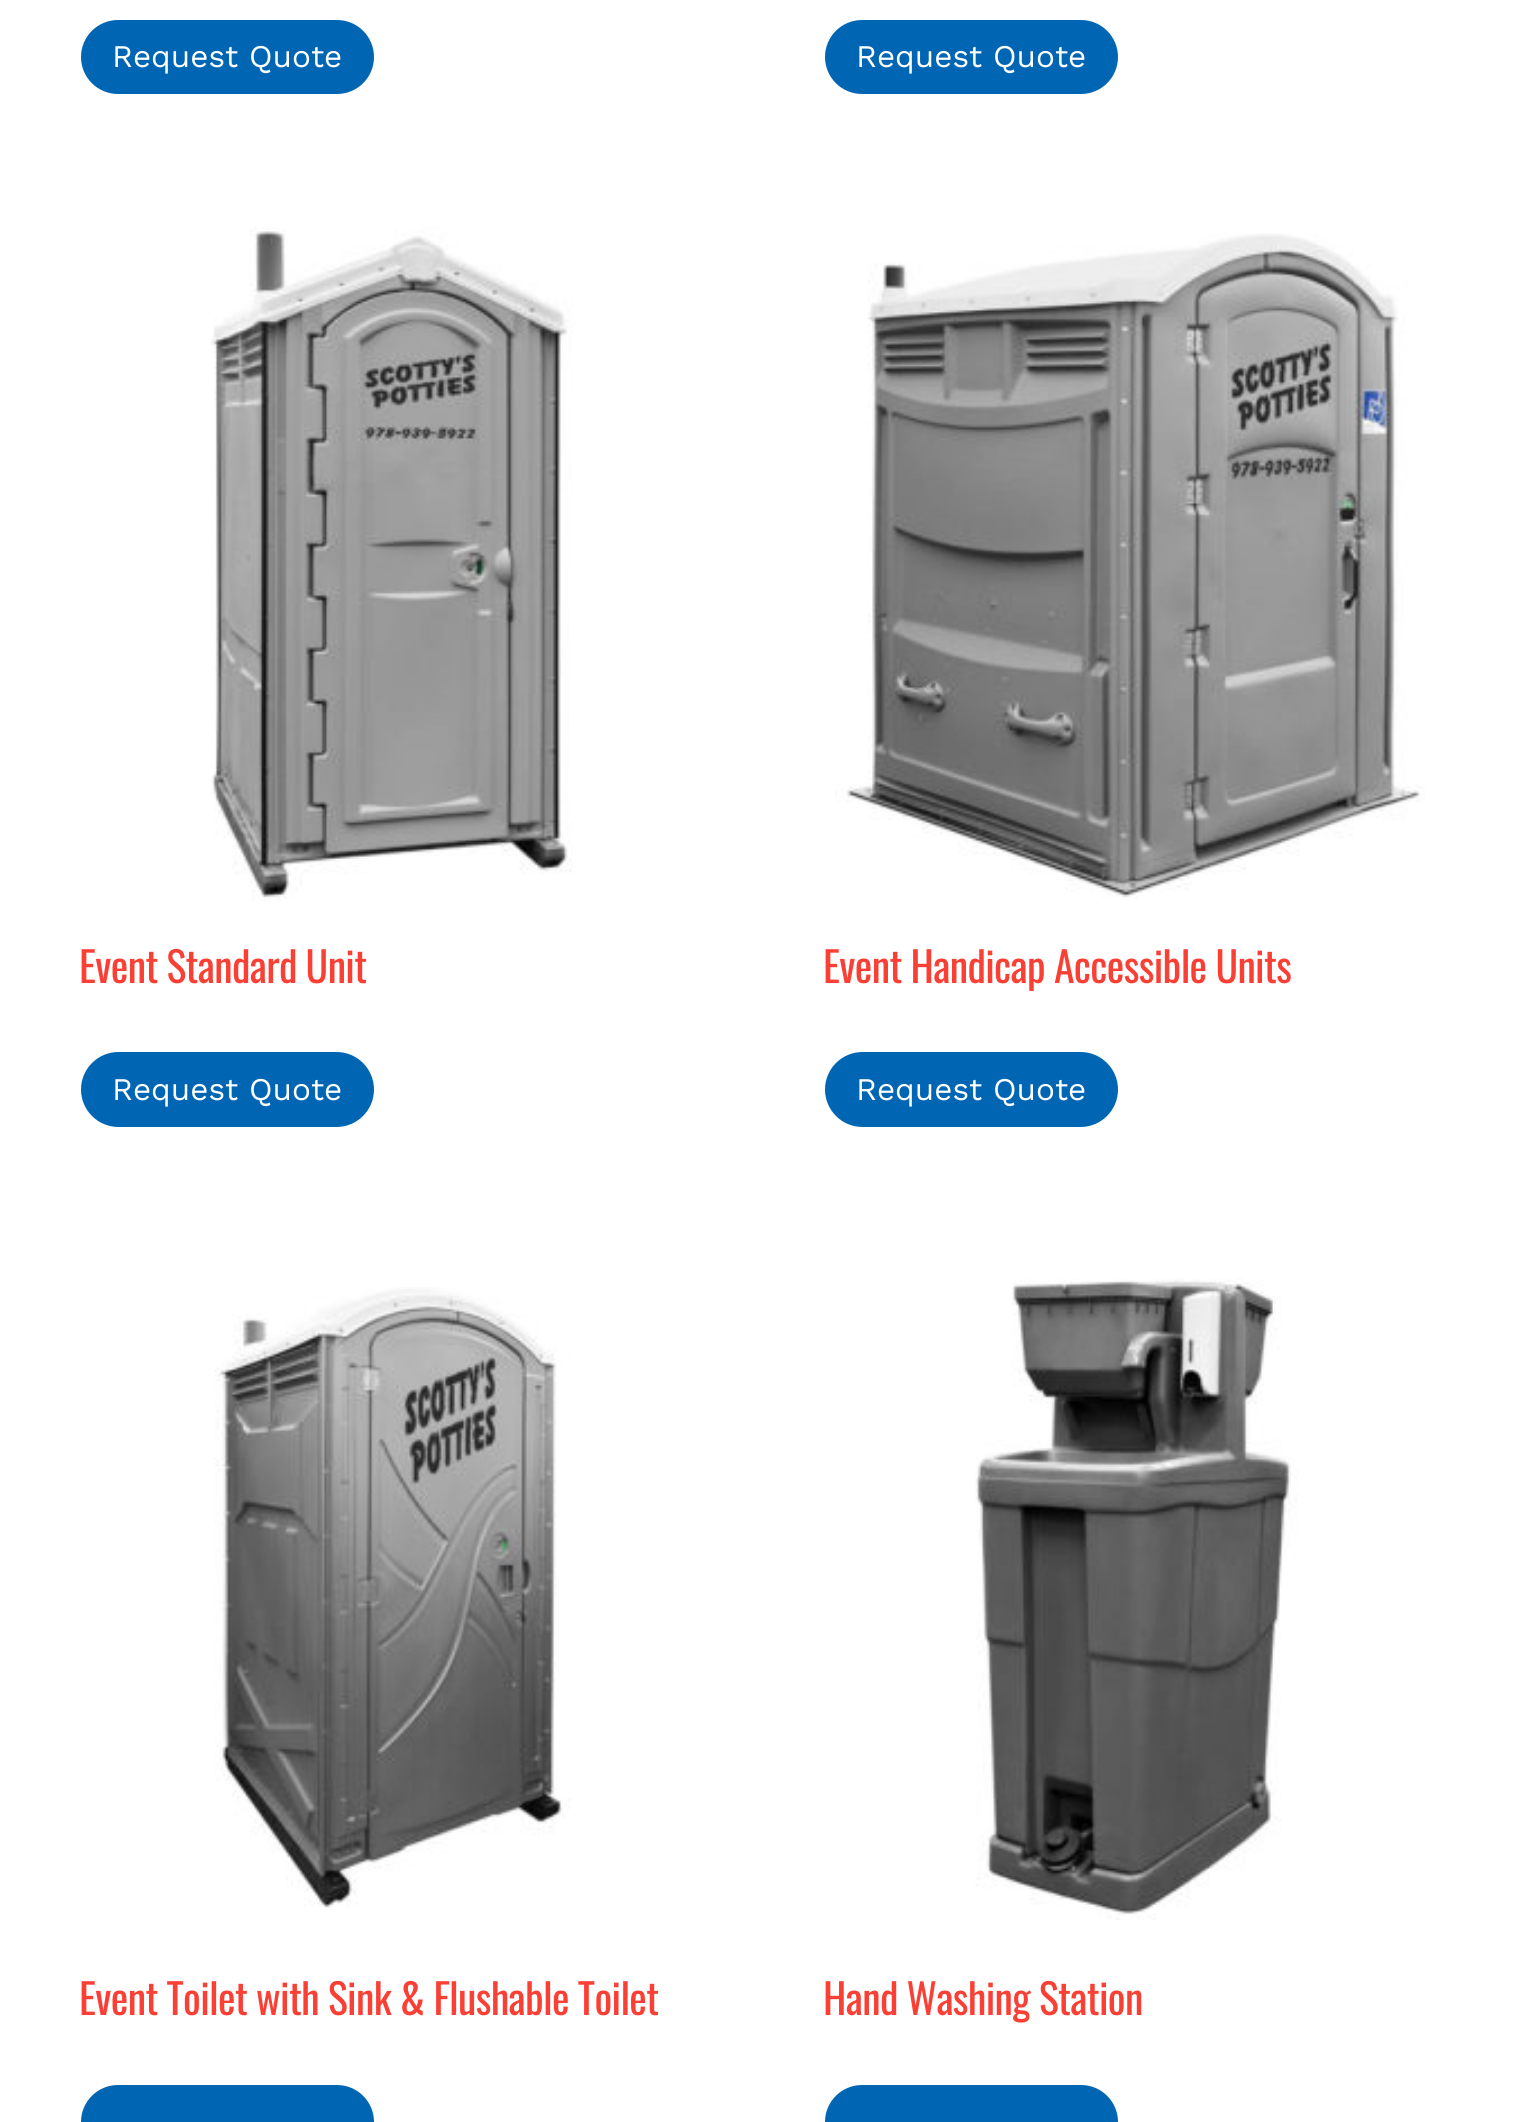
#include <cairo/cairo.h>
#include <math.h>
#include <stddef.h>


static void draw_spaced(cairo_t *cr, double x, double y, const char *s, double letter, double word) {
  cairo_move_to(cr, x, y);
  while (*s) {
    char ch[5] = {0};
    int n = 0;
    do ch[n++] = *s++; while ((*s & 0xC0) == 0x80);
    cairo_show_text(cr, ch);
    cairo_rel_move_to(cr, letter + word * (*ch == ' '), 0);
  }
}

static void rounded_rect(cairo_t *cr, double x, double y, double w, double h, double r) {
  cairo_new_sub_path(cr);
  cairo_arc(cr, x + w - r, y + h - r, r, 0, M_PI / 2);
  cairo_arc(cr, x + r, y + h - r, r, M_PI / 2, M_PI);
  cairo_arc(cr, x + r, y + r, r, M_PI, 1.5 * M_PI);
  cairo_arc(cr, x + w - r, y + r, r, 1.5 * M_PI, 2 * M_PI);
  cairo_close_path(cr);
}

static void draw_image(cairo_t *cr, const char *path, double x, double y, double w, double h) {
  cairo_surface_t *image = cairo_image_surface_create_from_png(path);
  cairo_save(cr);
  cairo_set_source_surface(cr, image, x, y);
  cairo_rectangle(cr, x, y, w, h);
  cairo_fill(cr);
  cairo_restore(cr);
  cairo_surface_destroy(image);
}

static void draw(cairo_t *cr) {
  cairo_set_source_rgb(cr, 1, 1, 1);
  cairo_paint(cr);
  cairo_set_source_rgb(cr, 0, 102 / 255.0, 180 / 255.0);
  rounded_rect(cr, 80, 19, 295, 76, 38);
  cairo_fill_preserve(cr);
  cairo_set_source_rgb(cr, 1, 1, 1);
  cairo_stroke(cr);
  cairo_set_source_rgb(cr, 0, 102 / 255.0, 180 / 255.0);
  rounded_rect(cr, 824, 19, 295, 76, 38);
  cairo_fill_preserve(cr);
  cairo_set_source_rgb(cr, 1, 1, 1);
  cairo_stroke(cr);
  draw_image(cr, "images/1.png", 210, 227, 363, 674);
  cairo_set_source_rgb(cr, 0, 102 / 255.0, 180 / 255.0);
  rounded_rect(cr, 80, 1051, 295, 77, 38.5);
  cairo_fill_preserve(cr);
  cairo_set_source_rgb(cr, 1, 1, 1);
  cairo_stroke(cr);
  draw_image(cr, "images/2.png", 835, 233, 590, 666);
  cairo_set_source_rgb(cr, 0, 102 / 255.0, 180 / 255.0);
  rounded_rect(cr, 824, 1051, 295, 77, 38.5);
  cairo_fill_preserve(cr);
  cairo_set_source_rgb(cr, 1, 1, 1);
  cairo_stroke(cr);
  draw_image(cr, "images/3.png", 214, 1287, 357, 621);
  cairo_set_source_rgb(cr, 0, 102 / 255.0, 180 / 255.0);
  rounded_rect(cr, 80, 2084, 295, 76, 38);
  cairo_fill_preserve(cr);
  cairo_set_source_rgb(cr, 1, 1, 1);
  cairo_stroke(cr);
  draw_image(cr, "images/4.png", 975, 1278, 324, 642);
  cairo_set_source_rgb(cr, 0, 102 / 255.0, 180 / 255.0);
  rounded_rect(cr, 824, 2084, 295, 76, 38);
  cairo_fill_preserve(cr);
  cairo_set_source_rgb(cr, 1, 1, 1);
  cairo_stroke(cr);
  cairo_select_font_face(cr, "Work Sans", CAIRO_FONT_SLANT_NORMAL, CAIRO_FONT_WEIGHT_NORMAL);
  cairo_set_font_size(cr, 31.5);
  cairo_move_to(cr, 112, 67);
  cairo_show_text(cr, "Request Quote");
  cairo_move_to(cr, 856, 67);
  cairo_show_text(cr, "Request Quote");
  cairo_select_font_face(cr, "Oswald", CAIRO_FONT_SLANT_NORMAL, CAIRO_FONT_WEIGHT_NORMAL);
  cairo_set_font_size(cr, 41.75);
  cairo_set_source_rgb(cr, 250 / 255.0, 63 / 255.0, 52 / 255.0);
  draw_spaced(cr, 79, 983, "Event Standard Unit", -0.65, 0);
  cairo_select_font_face(cr, "Work Sans", CAIRO_FONT_SLANT_NORMAL, CAIRO_FONT_WEIGHT_NORMAL);
  cairo_set_font_size(cr, 31.5);
  cairo_set_source_rgb(cr, 1, 1, 1);
  cairo_move_to(cr, 112, 1100);
  cairo_show_text(cr, "Request Quote");
  cairo_select_font_face(cr, "Oswald", CAIRO_FONT_SLANT_NORMAL, CAIRO_FONT_WEIGHT_NORMAL);
  cairo_set_font_size(cr, 41.75);
  cairo_set_source_rgb(cr, 250 / 255.0, 63 / 255.0, 52 / 255.0);
  draw_spaced(cr, 823, 983, "Event Handicap Accessible Units", -0.65, 0);
  cairo_select_font_face(cr, "Work Sans", CAIRO_FONT_SLANT_NORMAL, CAIRO_FONT_WEIGHT_NORMAL);
  cairo_set_font_size(cr, 31.5);
  cairo_set_source_rgb(cr, 1, 1, 1);
  cairo_move_to(cr, 856, 1100);
  cairo_show_text(cr, "Request Quote");
  cairo_select_font_face(cr, "Oswald", CAIRO_FONT_SLANT_NORMAL, CAIRO_FONT_WEIGHT_NORMAL);
  cairo_set_font_size(cr, 41.75);
  cairo_set_source_rgb(cr, 250 / 255.0, 63 / 255.0, 52 / 255.0);
  draw_spaced(cr, 79, 2015, "Event Toilet with Sink & Flushable Toilet", -0.65, 0);
  draw_spaced(cr, 823, 2015, "Hand Washing Station", -0.65, 0);
}

int main(void) {
  cairo_surface_t *surface = cairo_image_surface_create(CAIRO_FORMAT_RGB24, 1521, 2122);
  cairo_t *cr = cairo_create(surface);
  cairo_font_options_t *options = cairo_font_options_create();
  cairo_font_options_set_hint_metrics(options, CAIRO_HINT_METRICS_OFF);
  cairo_font_options_set_hint_style(options, CAIRO_HINT_STYLE_NONE);
  cairo_set_font_options(cr, options);
  cairo_set_miter_limit(cr, 4);
  draw(cr);
  cairo_surface_write_to_png(surface, "out.png");
  cairo_font_options_destroy(options);
  cairo_destroy(cr);
  cairo_surface_destroy(surface);
  return 0;
}
